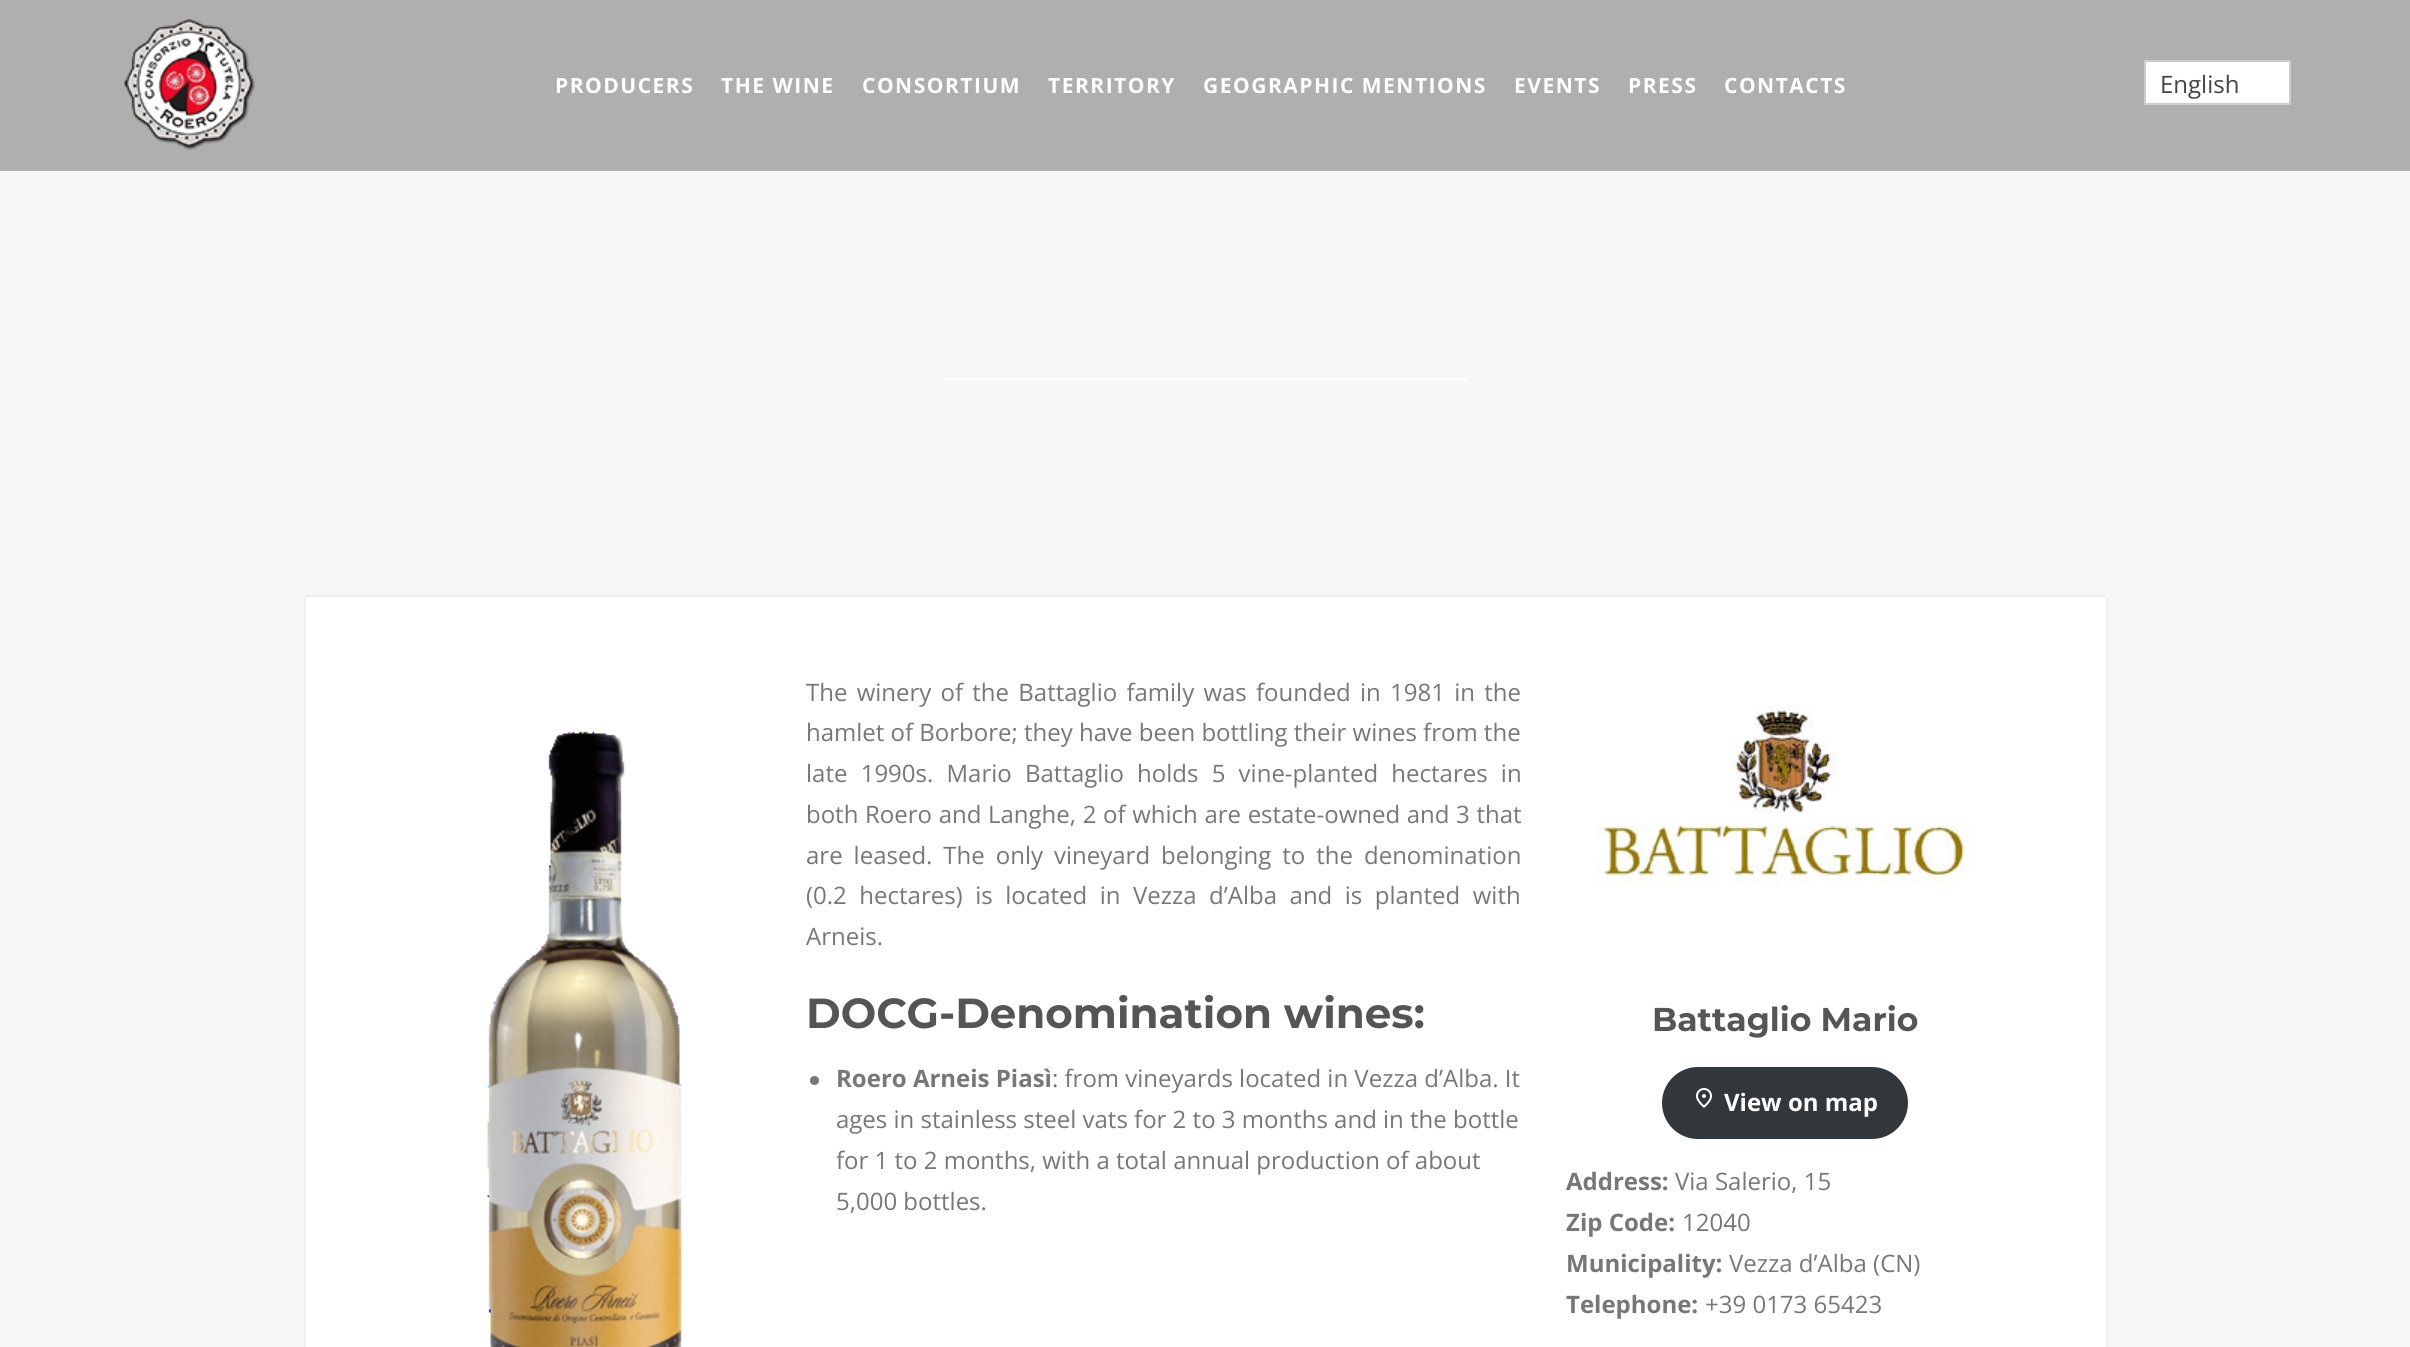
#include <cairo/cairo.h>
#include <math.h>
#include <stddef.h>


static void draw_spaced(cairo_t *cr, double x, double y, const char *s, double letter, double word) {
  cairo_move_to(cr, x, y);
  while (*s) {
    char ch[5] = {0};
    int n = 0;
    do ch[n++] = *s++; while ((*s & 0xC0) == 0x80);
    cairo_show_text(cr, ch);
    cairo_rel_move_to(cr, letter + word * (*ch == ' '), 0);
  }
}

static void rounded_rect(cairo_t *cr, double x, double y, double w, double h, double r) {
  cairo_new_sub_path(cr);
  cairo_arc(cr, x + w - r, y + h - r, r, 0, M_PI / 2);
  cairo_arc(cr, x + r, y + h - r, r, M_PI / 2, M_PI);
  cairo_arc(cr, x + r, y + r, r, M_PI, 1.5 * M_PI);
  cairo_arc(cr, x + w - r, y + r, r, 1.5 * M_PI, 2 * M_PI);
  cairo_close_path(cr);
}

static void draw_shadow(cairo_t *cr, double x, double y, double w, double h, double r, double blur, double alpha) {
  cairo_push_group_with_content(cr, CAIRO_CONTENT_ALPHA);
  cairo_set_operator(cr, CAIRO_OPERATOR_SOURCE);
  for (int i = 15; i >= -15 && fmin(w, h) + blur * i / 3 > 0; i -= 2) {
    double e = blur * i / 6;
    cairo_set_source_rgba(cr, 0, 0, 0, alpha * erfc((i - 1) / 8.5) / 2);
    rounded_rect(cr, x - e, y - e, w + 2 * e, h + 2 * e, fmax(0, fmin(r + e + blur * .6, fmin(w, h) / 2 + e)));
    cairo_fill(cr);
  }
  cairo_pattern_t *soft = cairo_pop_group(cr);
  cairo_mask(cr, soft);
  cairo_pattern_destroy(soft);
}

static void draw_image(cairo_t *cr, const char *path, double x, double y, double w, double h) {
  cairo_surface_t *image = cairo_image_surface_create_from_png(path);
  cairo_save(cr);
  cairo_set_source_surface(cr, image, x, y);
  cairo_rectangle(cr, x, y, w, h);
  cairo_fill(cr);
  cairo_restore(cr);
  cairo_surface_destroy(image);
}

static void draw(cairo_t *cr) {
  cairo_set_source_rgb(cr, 247 / 255.0, 247 / 255.0, 247 / 255.0);
  cairo_paint(cr);
  cairo_set_source_rgb(cr, 175 / 255.0, 175 / 255.0, 175 / 255.0);
  cairo_rectangle(cr, 0, 0, 2410, 171);
  cairo_fill(cr);
  draw_image(cr, "images/1.png", 124, 19, 132, 131);
  cairo_set_source_rgb(cr, 1, 1, 1);
  cairo_rectangle(cr, 2145, 61, 145, 43);
  cairo_fill_preserve(cr);
  cairo_set_source_rgb(cr, 205 / 255.0, 205 / 255.0, 205 / 255.0);
  cairo_stroke(cr);
  cairo_set_source_rgb(cr, 1, 1, 1);
  cairo_rectangle(cr, 944, 378, 523, 2);
  cairo_fill(cr);
  cairo_set_source_rgb(cr, 0, 0, 0);
  draw_shadow(cr, 306, 597, 1800, 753, 0, 1, 0.15);
  cairo_set_source_rgb(cr, 1, 1, 1);
  cairo_rectangle(cr, 306, 597, 1800, 750);
  cairo_fill(cr);
  draw_image(cr, "images/2.png", 487, 731, 195, 616);
  cairo_set_source_rgb(cr, 119 / 255.0, 119 / 255.0, 119 / 255.0);
  cairo_arc(cr, 814.5, 1080.5, 4.5, 0, 2 * M_PI);
  cairo_fill(cr);
  draw_image(cr, "images/3.png", 1597, 705, 372, 180);
  cairo_set_source_rgb(cr, 50 / 255.0, 55 / 255.0, 60 / 255.0);
  rounded_rect(cr, 1662, 1067, 246, 72, 36);
  cairo_fill(cr);
  draw_image(cr, "images/4.png", 1696, 1088, 16, 20);
  cairo_select_font_face(cr, "Open Sans", CAIRO_FONT_SLANT_NORMAL, CAIRO_FONT_WEIGHT_BOLD);
  cairo_set_font_size(cr, 21);
  cairo_set_source_rgb(cr, 1, 1, 1);
  draw_spaced(cr, 555, 93, "PRODUCERS", 1.5, 0);
  draw_spaced(cr, 721, 93, "THE WINE", 1.5, 0);
  draw_spaced(cr, 862, 93, "CONSORTIUM", 1.5, 0);
  draw_spaced(cr, 1048, 93, "TERRITORY", 1.5, 0);
  draw_spaced(cr, 1203, 93, "GEOGRAPHIC MENTIONS", 1.5, 0);
  draw_spaced(cr, 1514, 93, "EVENTS", 1.5, 0);
  draw_spaced(cr, 1628, 93, "PRESS", 1.5, 0);
  draw_spaced(cr, 1724, 93, "CONTACTS", 1.5, 0);
  cairo_select_font_face(cr, "Open Sans", CAIRO_FONT_SLANT_NORMAL, CAIRO_FONT_WEIGHT_NORMAL);
  cairo_set_font_size(cr, 24);
  cairo_set_source_rgb(cr, 68 / 255.0, 68 / 255.0, 68 / 255.0);
  cairo_move_to(cr, 2160, 93);
  cairo_show_text(cr, "English");
  cairo_set_source_rgb(cr, 119 / 255.0, 119 / 255.0, 119 / 255.0);
  draw_spaced(cr, 806, 701, "The winery of the Battaglio family was founded in 1981 in the", 0, 3);
  cairo_move_to(cr, 806, 741);
  cairo_show_text(cr, "hamlet of Borbore; they have been bottling their wines from the");
  draw_spaced(cr, 806, 782, "late 1990s. Mario Battaglio holds 5 vine-planted hectares in", 0, 7);
  draw_spaced(cr, 806, 823, "both Roero and Langhe, 2 of which are estate-owned and 3 that", 0, 0.4);
  draw_spaced(cr, 806, 864, "are leased. The only vineyard belonging to the denomination", 0, 4.75);
  draw_spaced(cr, 806, 904, "(0.2 hectares) is located in Vezza d’Alba and is planted with", 0, 6.25);
  cairo_move_to(cr, 806, 945);
  cairo_show_text(cr, "Arneis.");
  cairo_select_font_face(cr, "Montserrat", CAIRO_FONT_SLANT_NORMAL, CAIRO_FONT_WEIGHT_BOLD);
  cairo_set_font_size(cr, 42);
  cairo_set_source_rgb(cr, 85 / 255.0, 85 / 255.0, 85 / 255.0);
  cairo_move_to(cr, 806, 1028);
  cairo_show_text(cr, "DOCG-Denomination wines:");
  cairo_select_font_face(cr, "Open Sans", CAIRO_FONT_SLANT_NORMAL, CAIRO_FONT_WEIGHT_BOLD);
  cairo_set_font_size(cr, 24);
  cairo_set_source_rgb(cr, 119 / 255.0, 119 / 255.0, 119 / 255.0);
  cairo_move_to(cr, 836, 1087);
  cairo_show_text(cr, "Roero Arneis Piasì");
  cairo_select_font_face(cr, "Open Sans", CAIRO_FONT_SLANT_NORMAL, CAIRO_FONT_WEIGHT_NORMAL);
  cairo_move_to(cr, 1052, 1087);
  cairo_show_text(cr, ": from vineyards located in Vezza d’Alba. It");
  cairo_move_to(cr, 836, 1128);
  cairo_show_text(cr, "ages in stainless steel vats for 2 to 3 months and in the bottle");
  cairo_move_to(cr, 836, 1169);
  cairo_show_text(cr, "for 1 to 2 months, with a total annual production of about");
  cairo_move_to(cr, 836, 1210);
  cairo_show_text(cr, "5,000 bottles.");
  cairo_select_font_face(cr, "Montserrat", CAIRO_FONT_SLANT_NORMAL, CAIRO_FONT_WEIGHT_BOLD);
  cairo_set_font_size(cr, 33);
  cairo_set_source_rgb(cr, 85 / 255.0, 85 / 255.0, 85 / 255.0);
  cairo_move_to(cr, 1652, 1031);
  cairo_show_text(cr, "Battaglio Mario");
  cairo_select_font_face(cr, "Open Sans", CAIRO_FONT_SLANT_NORMAL, CAIRO_FONT_WEIGHT_BOLD);
  cairo_set_font_size(cr, 24);
  cairo_set_source_rgb(cr, 1, 1, 1);
  cairo_move_to(cr, 1724, 1111);
  cairo_show_text(cr, "View on map");
  cairo_set_source_rgb(cr, 119 / 255.0, 119 / 255.0, 119 / 255.0);
  cairo_move_to(cr, 1566, 1190);
  cairo_show_text(cr, "Address:");
  cairo_select_font_face(cr, "Open Sans", CAIRO_FONT_SLANT_NORMAL, CAIRO_FONT_WEIGHT_NORMAL);
  cairo_move_to(cr, 1675, 1190);
  cairo_show_text(cr, "Via Salerio, 15");
  cairo_select_font_face(cr, "Open Sans", CAIRO_FONT_SLANT_NORMAL, CAIRO_FONT_WEIGHT_BOLD);
  cairo_move_to(cr, 1566, 1231);
  cairo_show_text(cr, "Zip Code:");
  cairo_select_font_face(cr, "Open Sans", CAIRO_FONT_SLANT_NORMAL, CAIRO_FONT_WEIGHT_NORMAL);
  cairo_move_to(cr, 1682, 1231);
  cairo_show_text(cr, "12040");
  cairo_select_font_face(cr, "Open Sans", CAIRO_FONT_SLANT_NORMAL, CAIRO_FONT_WEIGHT_BOLD);
  cairo_move_to(cr, 1566, 1272);
  cairo_show_text(cr, "Municipality:");
  cairo_select_font_face(cr, "Open Sans", CAIRO_FONT_SLANT_NORMAL, CAIRO_FONT_WEIGHT_NORMAL);
  cairo_move_to(cr, 1729, 1272);
  cairo_show_text(cr, "Vezza d’Alba (CN)");
  cairo_select_font_face(cr, "Open Sans", CAIRO_FONT_SLANT_NORMAL, CAIRO_FONT_WEIGHT_BOLD);
  cairo_move_to(cr, 1566, 1313);
  cairo_show_text(cr, "Telephone:");
  cairo_select_font_face(cr, "Open Sans", CAIRO_FONT_SLANT_NORMAL, CAIRO_FONT_WEIGHT_NORMAL);
  cairo_move_to(cr, 1705, 1313);
  cairo_show_text(cr, "+39 0173 65423");
}

int main(void) {
  cairo_surface_t *surface = cairo_image_surface_create(CAIRO_FORMAT_RGB24, 2410, 1347);
  cairo_t *cr = cairo_create(surface);
  cairo_font_options_t *options = cairo_font_options_create();
  cairo_font_options_set_hint_metrics(options, CAIRO_HINT_METRICS_OFF);
  cairo_font_options_set_hint_style(options, CAIRO_HINT_STYLE_NONE);
  cairo_set_font_options(cr, options);
  cairo_set_miter_limit(cr, 4);
  draw(cr);
  cairo_surface_write_to_png(surface, "out.png");
  cairo_font_options_destroy(options);
  cairo_destroy(cr);
  cairo_surface_destroy(surface);
  return 0;
}
